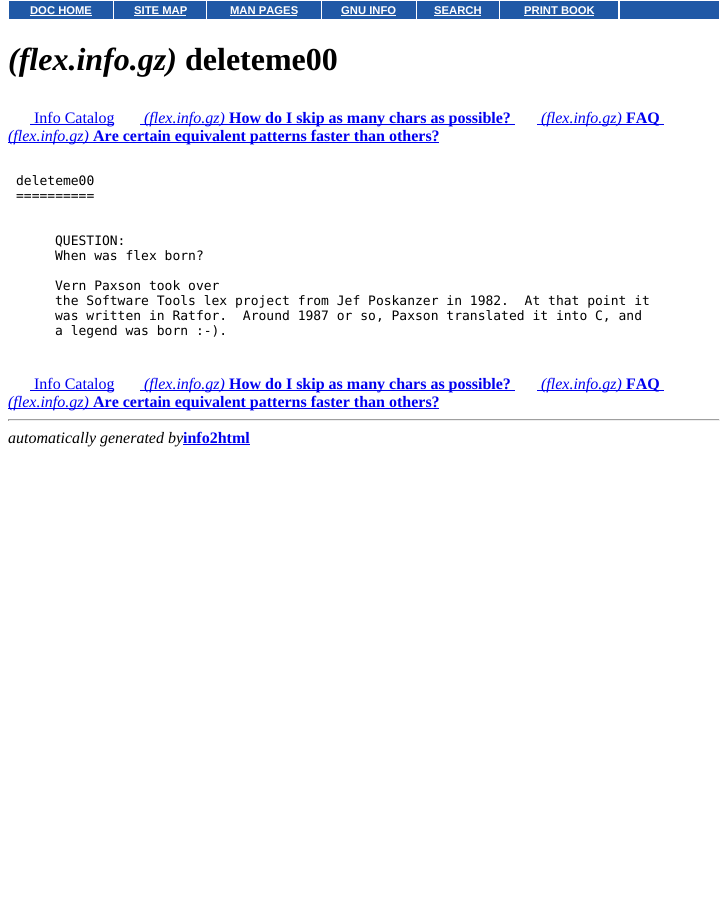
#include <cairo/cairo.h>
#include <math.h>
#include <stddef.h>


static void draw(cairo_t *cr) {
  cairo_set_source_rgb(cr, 1, 1, 1);
  cairo_paint(cr);
  cairo_set_source_rgb(cr, 32 / 255.0, 89 / 255.0, 166 / 255.0);
  cairo_rectangle(cr, 9, 1, 104, 18);
  cairo_fill(cr);
  cairo_set_source_rgb(cr, 1, 1, 1);
  cairo_rectangle(cr, 30, 15, 62, 1);
  cairo_fill(cr);
  cairo_set_source_rgb(cr, 32 / 255.0, 89 / 255.0, 166 / 255.0);
  cairo_rectangle(cr, 114, 1, 92, 18);
  cairo_fill(cr);
  cairo_set_source_rgb(cr, 1, 1, 1);
  cairo_rectangle(cr, 134, 15, 52, 1);
  cairo_fill(cr);
  cairo_set_source_rgb(cr, 32 / 255.0, 89 / 255.0, 166 / 255.0);
  cairo_rectangle(cr, 207, 1, 114, 18);
  cairo_fill(cr);
  cairo_set_source_rgb(cr, 1, 1, 1);
  cairo_rectangle(cr, 230, 15, 67, 1);
  cairo_fill(cr);
  cairo_set_source_rgb(cr, 32 / 255.0, 89 / 255.0, 166 / 255.0);
  cairo_rectangle(cr, 322, 1, 94, 18);
  cairo_fill(cr);
  cairo_set_source_rgb(cr, 1, 1, 1);
  cairo_rectangle(cr, 341, 15, 55, 1);
  cairo_fill(cr);
  cairo_set_source_rgb(cr, 32 / 255.0, 89 / 255.0, 166 / 255.0);
  cairo_rectangle(cr, 417, 1, 82, 18);
  cairo_fill(cr);
  cairo_set_source_rgb(cr, 1, 1, 1);
  cairo_rectangle(cr, 434, 15, 47, 1);
  cairo_fill(cr);
  cairo_set_source_rgb(cr, 32 / 255.0, 89 / 255.0, 166 / 255.0);
  cairo_rectangle(cr, 500, 1, 118, 18);
  cairo_fill(cr);
  cairo_set_source_rgb(cr, 1, 1, 1);
  cairo_rectangle(cr, 524, 15, 70, 1);
  cairo_fill(cr);
  cairo_set_source_rgb(cr, 32 / 255.0, 89 / 255.0, 166 / 255.0);
  cairo_rectangle(cr, 620, 1, 99, 18);
  cairo_fill(cr);
  cairo_set_source_rgb(cr, 0, 0, 238 / 255.0);
  cairo_rectangle(cr, 30, 124, 84, 1);
  cairo_fill(cr);
  cairo_rectangle(cr, 140, 124, 375, 1);
  cairo_fill(cr);
  cairo_rectangle(cr, 537, 124, 127, 1);
  cairo_fill(cr);
  cairo_rectangle(cr, 8, 142, 431, 1);
  cairo_fill(cr);
  cairo_rectangle(cr, 30, 390, 84, 1);
  cairo_fill(cr);
  cairo_rectangle(cr, 140, 390, 375, 1);
  cairo_fill(cr);
  cairo_rectangle(cr, 537, 390, 127, 1);
  cairo_fill(cr);
  cairo_rectangle(cr, 8, 408, 431, 1);
  cairo_fill(cr);
  cairo_set_source_rgb(cr, 159 / 255.0, 159 / 255.0, 159 / 255.0);
  cairo_rectangle(cr, 8, 419, 712, 1);
  cairo_fill(cr);
  cairo_set_source_rgb(cr, 238 / 255.0, 238 / 255.0, 238 / 255.0);
  cairo_rectangle(cr, 719, 419, 1, 2);
  cairo_fill(cr);
  cairo_rectangle(cr, 8, 420, 712, 1);
  cairo_fill(cr);
  cairo_set_source_rgb(cr, 159 / 255.0, 159 / 255.0, 159 / 255.0);
  cairo_rectangle(cr, 8, 419, 1, 2);
  cairo_fill(cr);
  cairo_select_font_face(cr, "Liberation Sans", CAIRO_FONT_SLANT_NORMAL, CAIRO_FONT_WEIGHT_BOLD);
  cairo_set_font_size(cr, 11.25);
  cairo_set_source_rgb(cr, 1, 1, 1);
  cairo_move_to(cr, 30, 14);
  cairo_show_text(cr, "DOC HOME");
  cairo_move_to(cr, 134, 14);
  cairo_show_text(cr, "SITE MAP");
  cairo_move_to(cr, 230, 14);
  cairo_show_text(cr, "MAN PAGES");
  cairo_move_to(cr, 341, 14);
  cairo_show_text(cr, "GNU INFO");
  cairo_move_to(cr, 434, 14);
  cairo_show_text(cr, "SEARCH");
  cairo_move_to(cr, 524, 14);
  cairo_show_text(cr, "PRINT BOOK");
  cairo_select_font_face(cr, "Liberation Serif", CAIRO_FONT_SLANT_ITALIC, CAIRO_FONT_WEIGHT_BOLD);
  cairo_set_font_size(cr, 32);
  cairo_set_source_rgb(cr, 0, 0, 0);
  cairo_move_to(cr, 8, 70);
  cairo_show_text(cr, "(flex.info.gz)");
  cairo_select_font_face(cr, "Liberation Serif", CAIRO_FONT_SLANT_NORMAL, CAIRO_FONT_WEIGHT_BOLD);
  cairo_move_to(cr, 185, 70);
  cairo_show_text(cr, "deleteme00");
  cairo_select_font_face(cr, "Liberation Serif", CAIRO_FONT_SLANT_NORMAL, CAIRO_FONT_WEIGHT_NORMAL);
  cairo_set_font_size(cr, 16);
  cairo_set_source_rgb(cr, 0, 0, 238 / 255.0);
  cairo_move_to(cr, 34, 123);
  cairo_show_text(cr, "Info Catalog");
  cairo_select_font_face(cr, "Liberation Serif", CAIRO_FONT_SLANT_ITALIC, CAIRO_FONT_WEIGHT_NORMAL);
  cairo_move_to(cr, 144, 123);
  cairo_show_text(cr, "(flex.info.gz)");
  cairo_select_font_face(cr, "Liberation Serif", CAIRO_FONT_SLANT_NORMAL, CAIRO_FONT_WEIGHT_BOLD);
  cairo_move_to(cr, 229, 123);
  cairo_show_text(cr, "How do I skip as many chars as possible?");
  cairo_select_font_face(cr, "Liberation Serif", CAIRO_FONT_SLANT_ITALIC, CAIRO_FONT_WEIGHT_NORMAL);
  cairo_move_to(cr, 541, 123);
  cairo_show_text(cr, "(flex.info.gz)");
  cairo_select_font_face(cr, "Liberation Serif", CAIRO_FONT_SLANT_NORMAL, CAIRO_FONT_WEIGHT_BOLD);
  cairo_move_to(cr, 626, 123);
  cairo_show_text(cr, "FAQ");
  cairo_select_font_face(cr, "Liberation Serif", CAIRO_FONT_SLANT_ITALIC, CAIRO_FONT_WEIGHT_NORMAL);
  cairo_move_to(cr, 8, 141);
  cairo_show_text(cr, "(flex.info.gz)");
  cairo_select_font_face(cr, "Liberation Serif", CAIRO_FONT_SLANT_NORMAL, CAIRO_FONT_WEIGHT_BOLD);
  cairo_move_to(cr, 93, 141);
  cairo_show_text(cr, "Are certain equivalent patterns faster than others?");
  cairo_select_font_face(cr, "DejaVu Sans Mono", CAIRO_FONT_SLANT_NORMAL, CAIRO_FONT_WEIGHT_NORMAL);
  cairo_set_font_size(cr, 13);
  cairo_set_source_rgb(cr, 0, 0, 0);
  cairo_move_to(cr, 16, 185);
  cairo_show_text(cr, "deleteme00");
  cairo_move_to(cr, 16, 200);
  cairo_show_text(cr, "==========");
  cairo_move_to(cr, 55, 245);
  cairo_show_text(cr, "QUESTION:");
  cairo_move_to(cr, 55, 260);
  cairo_show_text(cr, "When was flex born?");
  cairo_move_to(cr, 55, 290);
  cairo_show_text(cr, "Vern Paxson took over");
  cairo_move_to(cr, 55, 305);
  cairo_show_text(cr, "the Software Tools lex project from Jef Poskanzer in 1982.  At that point it");
  cairo_move_to(cr, 55, 320);
  cairo_show_text(cr, "was written in Ratfor.  Around 1987 or so, Paxson translated it into C, and");
  cairo_move_to(cr, 55, 335);
  cairo_show_text(cr, "a legend was born :-).");
  cairo_select_font_face(cr, "Liberation Serif", CAIRO_FONT_SLANT_NORMAL, CAIRO_FONT_WEIGHT_NORMAL);
  cairo_set_font_size(cr, 16);
  cairo_set_source_rgb(cr, 0, 0, 238 / 255.0);
  cairo_move_to(cr, 34, 389);
  cairo_show_text(cr, "Info Catalog");
  cairo_select_font_face(cr, "Liberation Serif", CAIRO_FONT_SLANT_ITALIC, CAIRO_FONT_WEIGHT_NORMAL);
  cairo_move_to(cr, 144, 389);
  cairo_show_text(cr, "(flex.info.gz)");
  cairo_select_font_face(cr, "Liberation Serif", CAIRO_FONT_SLANT_NORMAL, CAIRO_FONT_WEIGHT_BOLD);
  cairo_move_to(cr, 229, 389);
  cairo_show_text(cr, "How do I skip as many chars as possible?");
  cairo_select_font_face(cr, "Liberation Serif", CAIRO_FONT_SLANT_ITALIC, CAIRO_FONT_WEIGHT_NORMAL);
  cairo_move_to(cr, 541, 389);
  cairo_show_text(cr, "(flex.info.gz)");
  cairo_select_font_face(cr, "Liberation Serif", CAIRO_FONT_SLANT_NORMAL, CAIRO_FONT_WEIGHT_BOLD);
  cairo_move_to(cr, 626, 389);
  cairo_show_text(cr, "FAQ");
  cairo_select_font_face(cr, "Liberation Serif", CAIRO_FONT_SLANT_ITALIC, CAIRO_FONT_WEIGHT_NORMAL);
  cairo_move_to(cr, 8, 407);
  cairo_show_text(cr, "(flex.info.gz)");
  cairo_select_font_face(cr, "Liberation Serif", CAIRO_FONT_SLANT_NORMAL, CAIRO_FONT_WEIGHT_BOLD);
  cairo_move_to(cr, 93, 407);
  cairo_show_text(cr, "Are certain equivalent patterns faster than others?");
  cairo_select_font_face(cr, "Liberation Serif", CAIRO_FONT_SLANT_ITALIC, CAIRO_FONT_WEIGHT_NORMAL);
  cairo_set_source_rgb(cr, 0, 0, 0);
  cairo_move_to(cr, 8, 443);
  cairo_show_text(cr, "automatically generated by");
  cairo_select_font_face(cr, "Liberation Serif", CAIRO_FONT_SLANT_NORMAL, CAIRO_FONT_WEIGHT_BOLD);
  cairo_set_source_rgb(cr, 0, 0, 238 / 255.0);
  cairo_move_to(cr, 183, 443);
  cairo_show_text(cr, "info2html");
  cairo_rectangle(cr, 183, 444, 67, 1);
  cairo_fill(cr);
}

int main(void) {
  cairo_surface_t *surface = cairo_image_surface_create(CAIRO_FORMAT_RGB24, 728, 919);
  cairo_t *cr = cairo_create(surface);
  cairo_font_options_t *options = cairo_font_options_create();
  cairo_font_options_set_hint_metrics(options, CAIRO_HINT_METRICS_OFF);
  cairo_font_options_set_hint_style(options, CAIRO_HINT_STYLE_NONE);
  cairo_set_font_options(cr, options);
  cairo_set_miter_limit(cr, 4);
  draw(cr);
  cairo_surface_write_to_png(surface, "out.png");
  cairo_font_options_destroy(options);
  cairo_destroy(cr);
  cairo_surface_destroy(surface);
  return 0;
}
